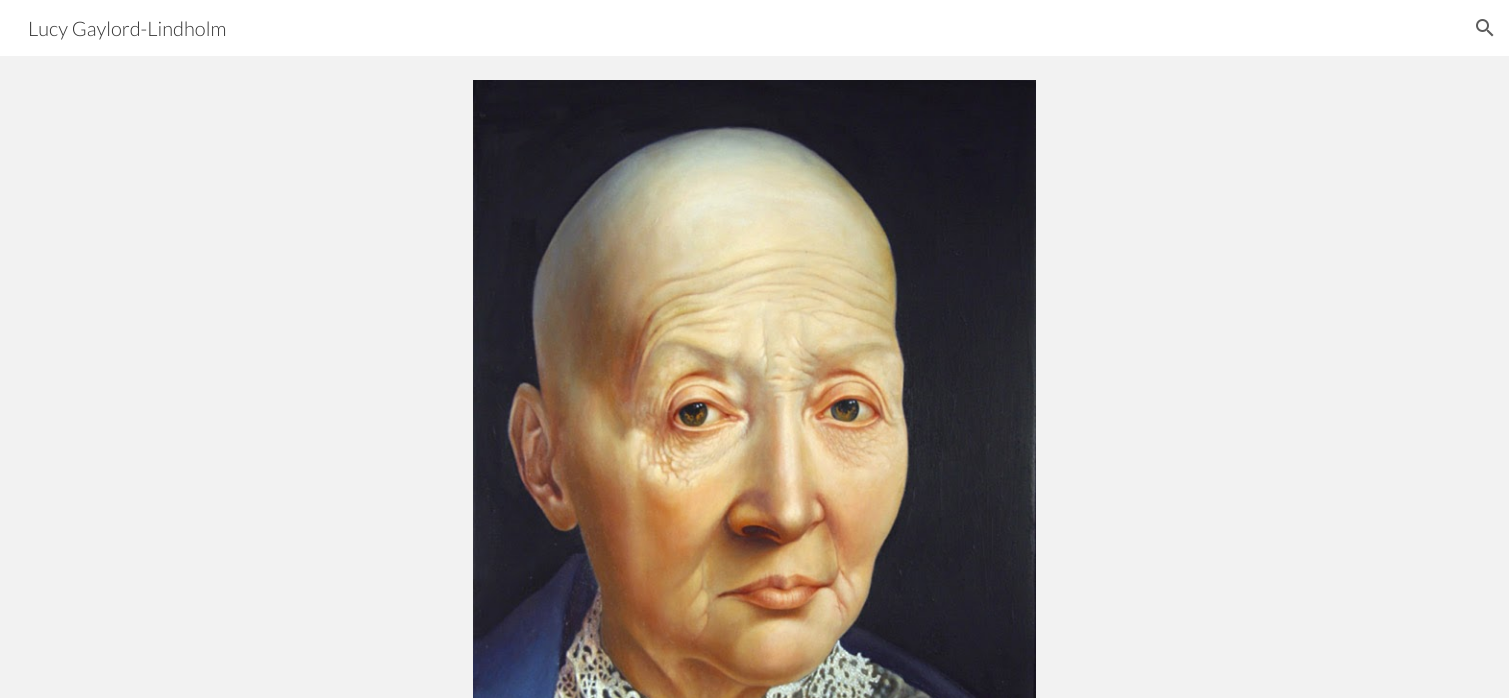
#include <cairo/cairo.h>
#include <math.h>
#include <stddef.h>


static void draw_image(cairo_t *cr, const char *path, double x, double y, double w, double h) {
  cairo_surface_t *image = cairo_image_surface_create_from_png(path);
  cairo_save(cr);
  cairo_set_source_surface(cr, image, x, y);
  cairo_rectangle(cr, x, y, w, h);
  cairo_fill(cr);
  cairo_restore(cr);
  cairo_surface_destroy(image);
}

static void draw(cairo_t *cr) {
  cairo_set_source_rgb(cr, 242 / 255.0, 242 / 255.0, 242 / 255.0);
  cairo_paint(cr);
  cairo_set_source_rgb(cr, 1, 1, 1);
  cairo_rectangle(cr, 0, 0, 1509, 56);
  cairo_fill(cr);
  draw_image(cr, "images/1.png", 1476, 19, 18, 18);
  draw_image(cr, "images/2.png", 473, 80, 563, 618);
  cairo_select_font_face(cr, "Lato Light", CAIRO_FONT_SLANT_NORMAL, CAIRO_FONT_WEIGHT_NORMAL);
  cairo_set_font_size(cr, 20);
  cairo_set_source_rgb(cr, 51 / 255.0, 51 / 255.0, 51 / 255.0);
  cairo_move_to(cr, 28, 36);
  cairo_show_text(cr, "Lucy Gaylord-Lindholm");
}

int main(void) {
  cairo_surface_t *surface = cairo_image_surface_create(CAIRO_FORMAT_RGB24, 1509, 698);
  cairo_t *cr = cairo_create(surface);
  cairo_font_options_t *options = cairo_font_options_create();
  cairo_font_options_set_hint_metrics(options, CAIRO_HINT_METRICS_OFF);
  cairo_font_options_set_hint_style(options, CAIRO_HINT_STYLE_NONE);
  cairo_set_font_options(cr, options);
  cairo_set_miter_limit(cr, 4);
  draw(cr);
  cairo_surface_write_to_png(surface, "out.png");
  cairo_font_options_destroy(options);
  cairo_destroy(cr);
  cairo_surface_destroy(surface);
  return 0;
}
